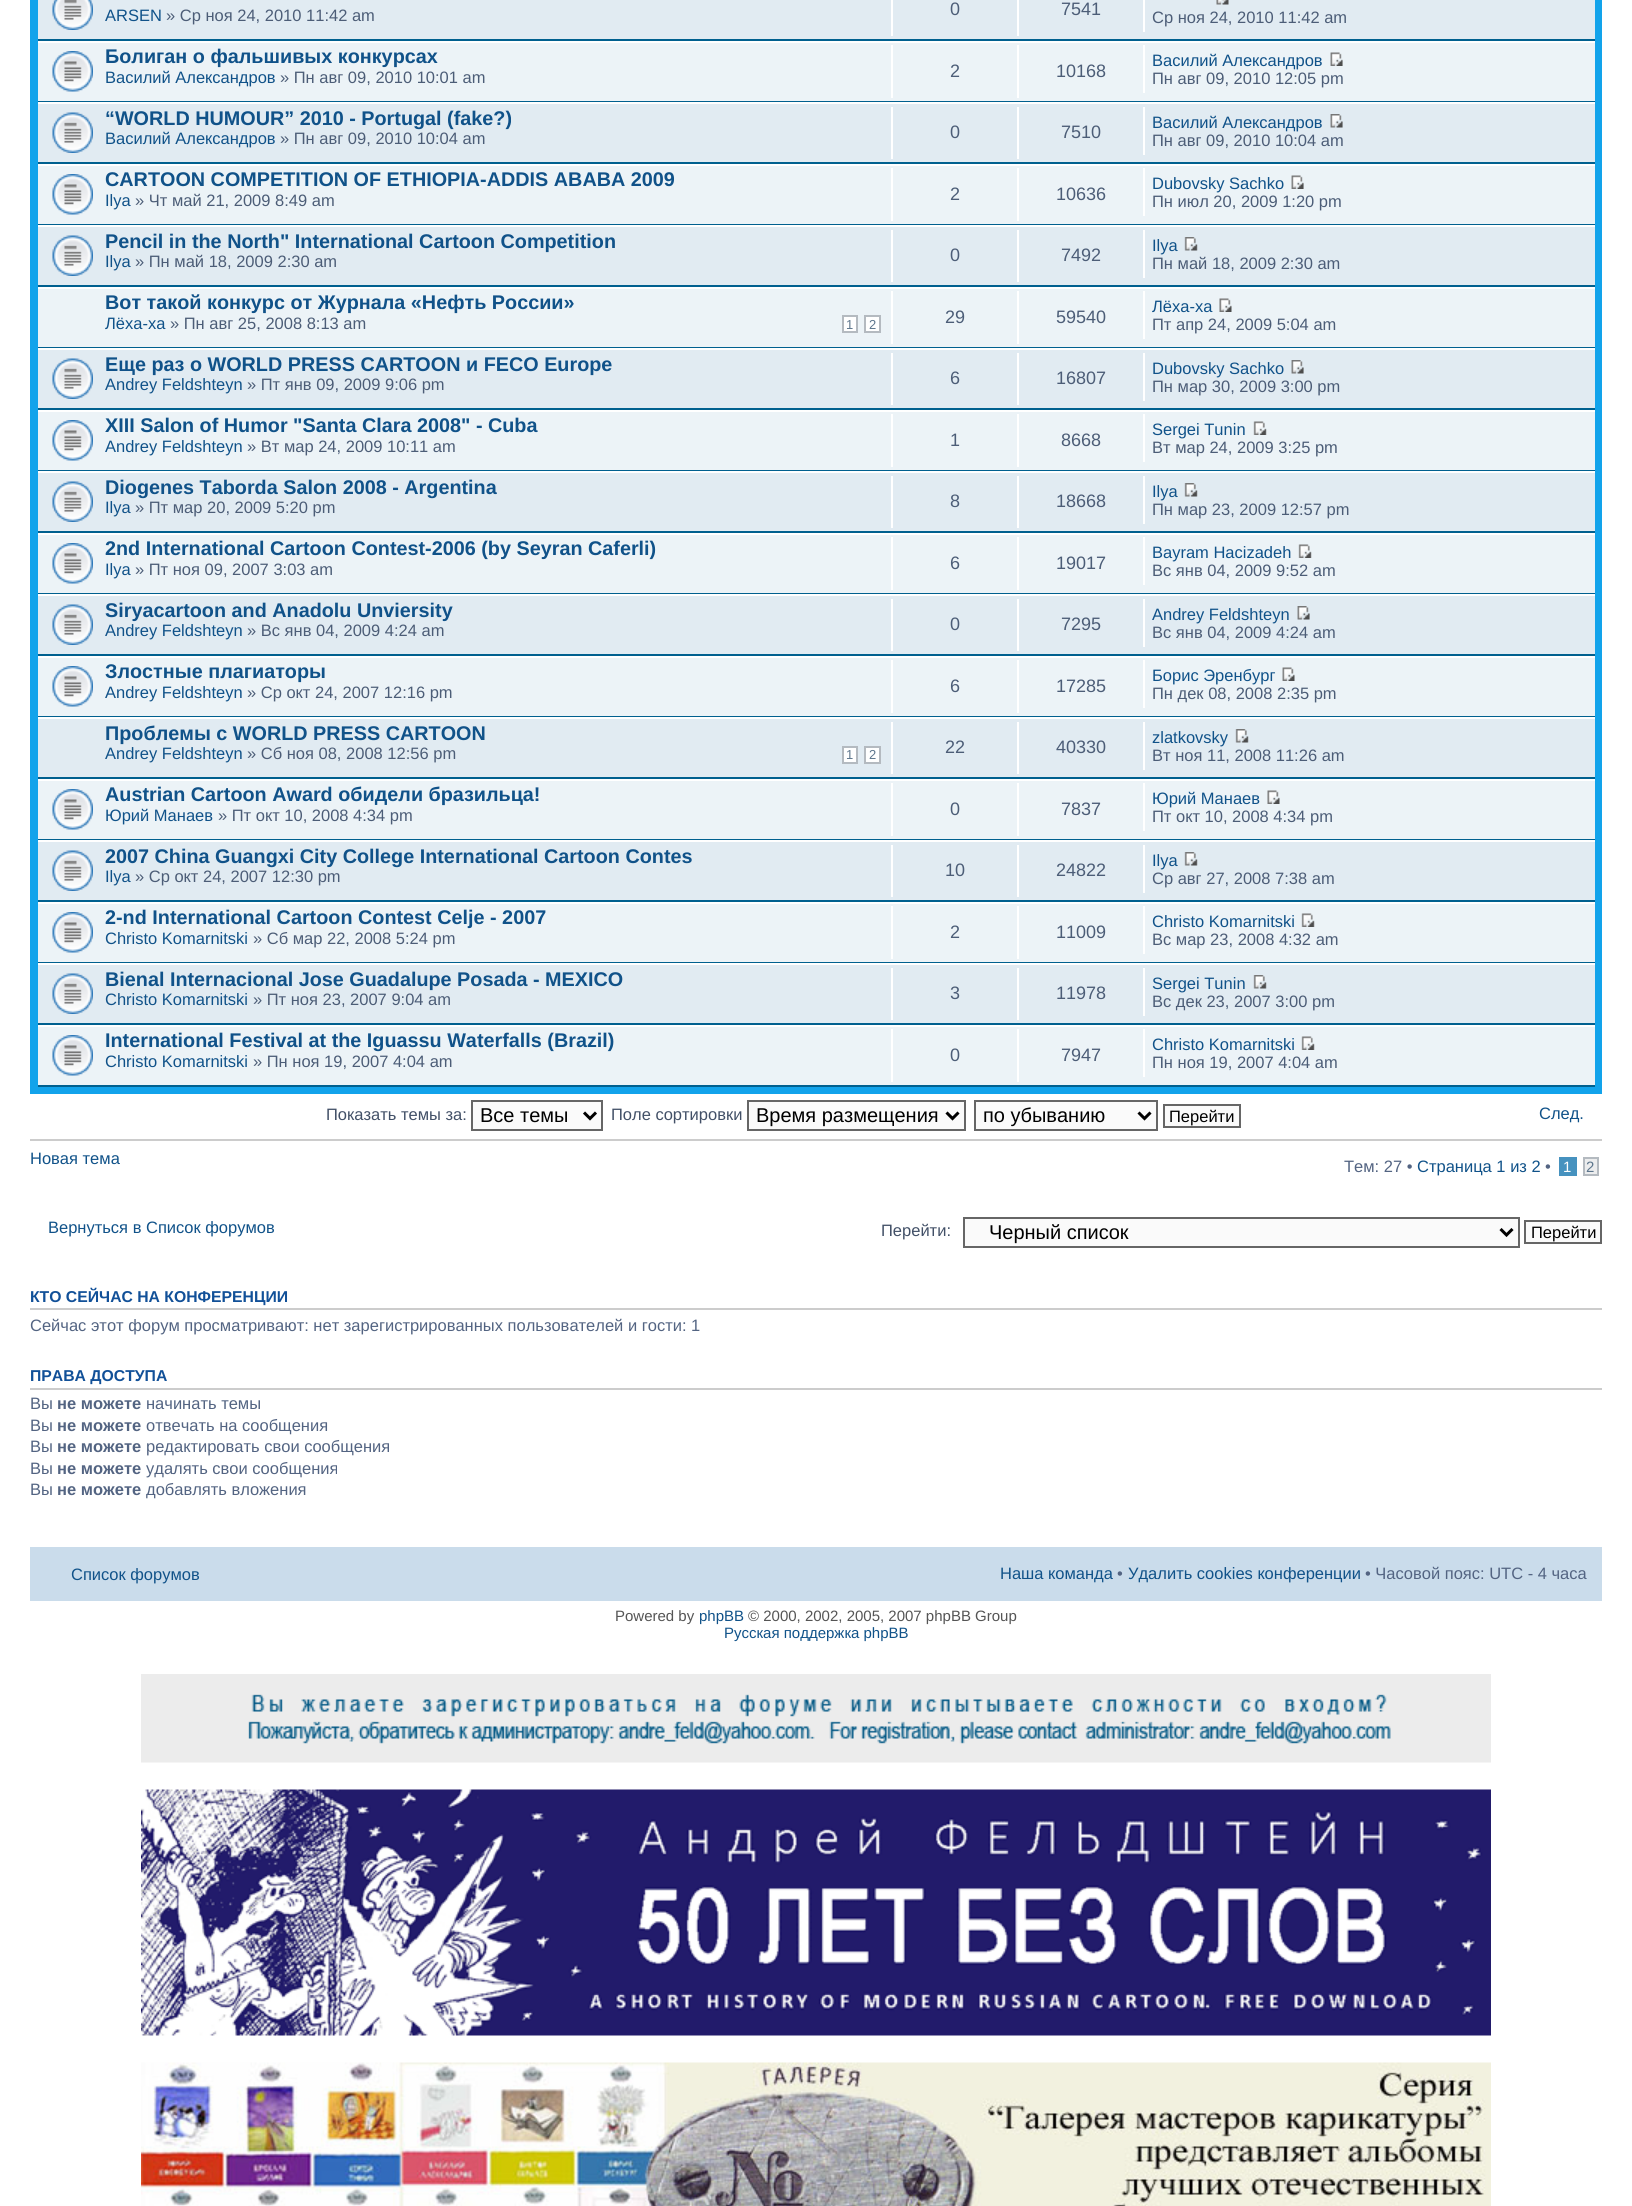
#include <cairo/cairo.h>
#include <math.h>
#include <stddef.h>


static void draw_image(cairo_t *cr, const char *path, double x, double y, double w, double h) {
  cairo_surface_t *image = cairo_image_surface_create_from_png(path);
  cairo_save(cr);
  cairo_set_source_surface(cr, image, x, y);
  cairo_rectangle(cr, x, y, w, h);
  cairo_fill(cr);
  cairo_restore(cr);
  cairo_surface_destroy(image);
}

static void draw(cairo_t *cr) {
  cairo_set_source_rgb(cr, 1, 1, 1);
  cairo_paint(cr);
  cairo_set_source_rgb(cr, 18 / 255.0, 163 / 255.0, 235 / 255.0);
  cairo_rectangle(cr, 30, 0, 1572, 1094);
  cairo_fill(cr);
  cairo_set_source_rgb(cr, 225 / 255.0, 235 / 255.0, 242 / 255.0);
  cairo_rectangle(cr, 38, 0, 1557, 39);
  cairo_fill(cr);
  cairo_set_source_rgb(cr, 0, 96 / 255.0, 143 / 255.0);
  cairo_rectangle(cr, 38, 39, 1557, 2);
  cairo_fill(cr);
  draw_image(cr, "images/1.png", 52, 0, 41, 30);
  cairo_set_source_rgb(cr, 1, 1, 1);
  cairo_rectangle(cr, 891, 0, 2, 36);
  cairo_fill(cr);
  cairo_rectangle(cr, 1017, 0, 2, 36);
  cairo_fill(cr);
  cairo_rectangle(cr, 1143, 0, 2, 32);
  cairo_fill(cr);
  draw_image(cr, "images/2.png", 1216, 0, 13, 5);
  cairo_set_source_rgb(cr, 236 / 255.0, 243 / 255.0, 247 / 255.0);
  cairo_rectangle(cr, 38, 43, 1557, 58);
  cairo_fill(cr);
  cairo_set_source_rgb(cr, 1, 1, 1);
  cairo_rectangle(cr, 38, 41, 1557, 2);
  cairo_fill(cr);
  cairo_set_source_rgb(cr, 0, 96 / 255.0, 143 / 255.0);
  cairo_rectangle(cr, 38, 101, 1557, 1);
  cairo_fill(cr);
  draw_image(cr, "images/3.png", 52, 51, 41, 41);
  cairo_set_source_rgb(cr, 1, 1, 1);
  cairo_rectangle(cr, 891, 45, 2, 53);
  cairo_fill(cr);
  cairo_rectangle(cr, 1017, 45, 2, 53);
  cairo_fill(cr);
  cairo_rectangle(cr, 1143, 45, 2, 48);
  cairo_fill(cr);
  draw_image(cr, "images/4.png", 1330, 52, 13, 14);
  cairo_set_source_rgb(cr, 225 / 255.0, 235 / 255.0, 242 / 255.0);
  cairo_rectangle(cr, 38, 104, 1557, 58);
  cairo_fill(cr);
  cairo_set_source_rgb(cr, 1, 1, 1);
  cairo_rectangle(cr, 38, 102, 1557, 2);
  cairo_fill(cr);
  cairo_set_source_rgb(cr, 0, 96 / 255.0, 143 / 255.0);
  cairo_rectangle(cr, 38, 162, 1557, 2);
  cairo_fill(cr);
  draw_image(cr, "images/5.png", 52, 112, 41, 41);
  cairo_set_source_rgb(cr, 1, 1, 1);
  cairo_rectangle(cr, 891, 107, 2, 52);
  cairo_fill(cr);
  cairo_rectangle(cr, 1017, 107, 2, 52);
  cairo_fill(cr);
  cairo_rectangle(cr, 1143, 107, 2, 48);
  cairo_fill(cr);
  draw_image(cr, "images/6.png", 1330, 114, 13, 14);
  cairo_set_source_rgb(cr, 236 / 255.0, 243 / 255.0, 247 / 255.0);
  cairo_rectangle(cr, 38, 166, 1557, 58);
  cairo_fill(cr);
  cairo_set_source_rgb(cr, 1, 1, 1);
  cairo_rectangle(cr, 38, 164, 1557, 2);
  cairo_fill(cr);
  cairo_set_source_rgb(cr, 0, 96 / 255.0, 143 / 255.0);
  cairo_rectangle(cr, 38, 224, 1557, 1);
  cairo_fill(cr);
  draw_image(cr, "images/3.png", 52, 174, 41, 41);
  cairo_set_source_rgb(cr, 1, 1, 1);
  cairo_rectangle(cr, 891, 168, 2, 53);
  cairo_fill(cr);
  cairo_rectangle(cr, 1017, 168, 2, 53);
  cairo_fill(cr);
  cairo_rectangle(cr, 1143, 168, 2, 48);
  cairo_fill(cr);
  draw_image(cr, "images/4.png", 1291, 175, 13, 14);
  cairo_set_source_rgb(cr, 225 / 255.0, 235 / 255.0, 242 / 255.0);
  cairo_rectangle(cr, 38, 227, 1557, 58);
  cairo_fill(cr);
  cairo_set_source_rgb(cr, 1, 1, 1);
  cairo_rectangle(cr, 38, 225, 1557, 2);
  cairo_fill(cr);
  cairo_set_source_rgb(cr, 0, 96 / 255.0, 143 / 255.0);
  cairo_rectangle(cr, 38, 285, 1557, 2);
  cairo_fill(cr);
  draw_image(cr, "images/5.png", 52, 235, 41, 41);
  cairo_set_source_rgb(cr, 1, 1, 1);
  cairo_rectangle(cr, 891, 230, 2, 52);
  cairo_fill(cr);
  cairo_rectangle(cr, 1017, 230, 2, 52);
  cairo_fill(cr);
  cairo_rectangle(cr, 1143, 230, 2, 48);
  cairo_fill(cr);
  draw_image(cr, "images/7.png", 1184, 237, 14, 14);
  cairo_set_source_rgb(cr, 236 / 255.0, 243 / 255.0, 247 / 255.0);
  cairo_rectangle(cr, 38, 289, 1557, 58);
  cairo_fill(cr);
  cairo_set_source_rgb(cr, 1, 1, 1);
  cairo_rectangle(cr, 38, 287, 1557, 2);
  cairo_fill(cr);
  cairo_set_source_rgb(cr, 0, 96 / 255.0, 143 / 255.0);
  cairo_rectangle(cr, 38, 347, 1557, 1);
  cairo_fill(cr);
  cairo_set_source_rgb(cr, 1, 1, 1);
  cairo_rectangle(cr, 843, 316, 14, 16);
  cairo_fill_preserve(cr);
  cairo_set_source_rgb(cr, 180 / 255.0, 186 / 255.0, 192 / 255.0);
  cairo_stroke(cr);
  cairo_set_source_rgb(cr, 1, 1, 1);
  cairo_rectangle(cr, 865, 316, 15, 16);
  cairo_fill_preserve(cr);
  cairo_set_source_rgb(cr, 180 / 255.0, 186 / 255.0, 192 / 255.0);
  cairo_stroke(cr);
  cairo_set_source_rgb(cr, 1, 1, 1);
  cairo_rectangle(cr, 891, 291, 2, 53);
  cairo_fill(cr);
  cairo_rectangle(cr, 1017, 291, 2, 53);
  cairo_fill(cr);
  cairo_rectangle(cr, 1143, 291, 2, 48);
  cairo_fill(cr);
  draw_image(cr, "images/8.png", 1219, 298, 13, 14);
  cairo_set_source_rgb(cr, 225 / 255.0, 235 / 255.0, 242 / 255.0);
  cairo_rectangle(cr, 38, 350, 1557, 58);
  cairo_fill(cr);
  cairo_set_source_rgb(cr, 1, 1, 1);
  cairo_rectangle(cr, 38, 348, 1557, 2);
  cairo_fill(cr);
  cairo_set_source_rgb(cr, 0, 96 / 255.0, 143 / 255.0);
  cairo_rectangle(cr, 38, 408, 1557, 2);
  cairo_fill(cr);
  draw_image(cr, "images/5.png", 52, 358, 41, 41);
  cairo_set_source_rgb(cr, 1, 1, 1);
  cairo_rectangle(cr, 891, 353, 2, 52);
  cairo_fill(cr);
  cairo_rectangle(cr, 1017, 353, 2, 52);
  cairo_fill(cr);
  cairo_rectangle(cr, 1143, 353, 2, 48);
  cairo_fill(cr);
  draw_image(cr, "images/6.png", 1291, 360, 13, 14);
  cairo_set_source_rgb(cr, 236 / 255.0, 243 / 255.0, 247 / 255.0);
  cairo_rectangle(cr, 38, 412, 1557, 58);
  cairo_fill(cr);
  cairo_set_source_rgb(cr, 1, 1, 1);
  cairo_rectangle(cr, 38, 410, 1557, 2);
  cairo_fill(cr);
  cairo_set_source_rgb(cr, 0, 96 / 255.0, 143 / 255.0);
  cairo_rectangle(cr, 38, 470, 1557, 1);
  cairo_fill(cr);
  draw_image(cr, "images/3.png", 52, 420, 41, 41);
  cairo_set_source_rgb(cr, 1, 1, 1);
  cairo_rectangle(cr, 891, 414, 2, 53);
  cairo_fill(cr);
  cairo_rectangle(cr, 1017, 414, 2, 53);
  cairo_fill(cr);
  cairo_rectangle(cr, 1143, 414, 2, 48);
  cairo_fill(cr);
  draw_image(cr, "images/9.png", 1253, 421, 14, 14);
  cairo_set_source_rgb(cr, 225 / 255.0, 235 / 255.0, 242 / 255.0);
  cairo_rectangle(cr, 38, 473, 1557, 58);
  cairo_fill(cr);
  cairo_set_source_rgb(cr, 1, 1, 1);
  cairo_rectangle(cr, 38, 471, 1557, 2);
  cairo_fill(cr);
  cairo_set_source_rgb(cr, 0, 96 / 255.0, 143 / 255.0);
  cairo_rectangle(cr, 38, 531, 1557, 2);
  cairo_fill(cr);
  draw_image(cr, "images/5.png", 52, 481, 41, 41);
  cairo_set_source_rgb(cr, 1, 1, 1);
  cairo_rectangle(cr, 891, 476, 2, 52);
  cairo_fill(cr);
  cairo_rectangle(cr, 1017, 476, 2, 52);
  cairo_fill(cr);
  cairo_rectangle(cr, 1143, 476, 2, 48);
  cairo_fill(cr);
  draw_image(cr, "images/7.png", 1184, 483, 14, 14);
  cairo_set_source_rgb(cr, 236 / 255.0, 243 / 255.0, 247 / 255.0);
  cairo_rectangle(cr, 38, 535, 1557, 58);
  cairo_fill(cr);
  cairo_set_source_rgb(cr, 1, 1, 1);
  cairo_rectangle(cr, 38, 533, 1557, 2);
  cairo_fill(cr);
  cairo_set_source_rgb(cr, 0, 96 / 255.0, 143 / 255.0);
  cairo_rectangle(cr, 38, 593, 1557, 1);
  cairo_fill(cr);
  draw_image(cr, "images/3.png", 52, 543, 41, 41);
  cairo_set_source_rgb(cr, 1, 1, 1);
  cairo_rectangle(cr, 891, 537, 2, 53);
  cairo_fill(cr);
  cairo_rectangle(cr, 1017, 537, 2, 53);
  cairo_fill(cr);
  cairo_rectangle(cr, 1143, 537, 2, 48);
  cairo_fill(cr);
  draw_image(cr, "images/10.png", 1298, 544, 14, 14);
  cairo_set_source_rgb(cr, 225 / 255.0, 235 / 255.0, 242 / 255.0);
  cairo_rectangle(cr, 38, 596, 1557, 58);
  cairo_fill(cr);
  cairo_set_source_rgb(cr, 1, 1, 1);
  cairo_rectangle(cr, 38, 594, 1557, 2);
  cairo_fill(cr);
  cairo_set_source_rgb(cr, 0, 96 / 255.0, 143 / 255.0);
  cairo_rectangle(cr, 38, 654, 1557, 2);
  cairo_fill(cr);
  draw_image(cr, "images/5.png", 52, 604, 41, 41);
  cairo_set_source_rgb(cr, 1, 1, 1);
  cairo_rectangle(cr, 891, 599, 2, 52);
  cairo_fill(cr);
  cairo_rectangle(cr, 1017, 599, 2, 52);
  cairo_fill(cr);
  cairo_rectangle(cr, 1143, 599, 2, 48);
  cairo_fill(cr);
  draw_image(cr, "images/6.png", 1297, 606, 13, 14);
  cairo_set_source_rgb(cr, 236 / 255.0, 243 / 255.0, 247 / 255.0);
  cairo_rectangle(cr, 38, 658, 1557, 58);
  cairo_fill(cr);
  cairo_set_source_rgb(cr, 1, 1, 1);
  cairo_rectangle(cr, 38, 656, 1557, 2);
  cairo_fill(cr);
  cairo_set_source_rgb(cr, 0, 96 / 255.0, 143 / 255.0);
  cairo_rectangle(cr, 38, 716, 1557, 1);
  cairo_fill(cr);
  draw_image(cr, "images/3.png", 52, 666, 41, 41);
  cairo_set_source_rgb(cr, 1, 1, 1);
  cairo_rectangle(cr, 891, 660, 2, 53);
  cairo_fill(cr);
  cairo_rectangle(cr, 1017, 660, 2, 53);
  cairo_fill(cr);
  cairo_rectangle(cr, 1143, 660, 2, 48);
  cairo_fill(cr);
  draw_image(cr, "images/11.png", 1282, 667, 13, 14);
  cairo_set_source_rgb(cr, 225 / 255.0, 235 / 255.0, 242 / 255.0);
  cairo_rectangle(cr, 38, 719, 1557, 58);
  cairo_fill(cr);
  cairo_set_source_rgb(cr, 1, 1, 1);
  cairo_rectangle(cr, 38, 717, 1557, 2);
  cairo_fill(cr);
  cairo_set_source_rgb(cr, 0, 96 / 255.0, 143 / 255.0);
  cairo_rectangle(cr, 38, 777, 1557, 2);
  cairo_fill(cr);
  cairo_set_source_rgb(cr, 1, 1, 1);
  cairo_rectangle(cr, 843, 747, 14, 16);
  cairo_fill_preserve(cr);
  cairo_set_source_rgb(cr, 180 / 255.0, 186 / 255.0, 192 / 255.0);
  cairo_stroke(cr);
  cairo_set_source_rgb(cr, 1, 1, 1);
  cairo_rectangle(cr, 865, 747, 15, 16);
  cairo_fill_preserve(cr);
  cairo_set_source_rgb(cr, 180 / 255.0, 186 / 255.0, 192 / 255.0);
  cairo_stroke(cr);
  cairo_set_source_rgb(cr, 1, 1, 1);
  cairo_rectangle(cr, 891, 722, 2, 52);
  cairo_fill(cr);
  cairo_rectangle(cr, 1017, 722, 2, 52);
  cairo_fill(cr);
  cairo_rectangle(cr, 1143, 722, 2, 48);
  cairo_fill(cr);
  draw_image(cr, "images/7.png", 1235, 729, 14, 14);
  cairo_set_source_rgb(cr, 236 / 255.0, 243 / 255.0, 247 / 255.0);
  cairo_rectangle(cr, 38, 781, 1557, 58);
  cairo_fill(cr);
  cairo_set_source_rgb(cr, 1, 1, 1);
  cairo_rectangle(cr, 38, 779, 1557, 2);
  cairo_fill(cr);
  cairo_set_source_rgb(cr, 0, 96 / 255.0, 143 / 255.0);
  cairo_rectangle(cr, 38, 839, 1557, 1);
  cairo_fill(cr);
  draw_image(cr, "images/3.png", 52, 789, 41, 41);
  cairo_set_source_rgb(cr, 1, 1, 1);
  cairo_rectangle(cr, 891, 783, 2, 53);
  cairo_fill(cr);
  cairo_rectangle(cr, 1017, 783, 2, 53);
  cairo_fill(cr);
  cairo_rectangle(cr, 1143, 783, 2, 48);
  cairo_fill(cr);
  draw_image(cr, "images/8.png", 1267, 790, 13, 14);
  cairo_set_source_rgb(cr, 225 / 255.0, 235 / 255.0, 242 / 255.0);
  cairo_rectangle(cr, 38, 842, 1557, 58);
  cairo_fill(cr);
  cairo_set_source_rgb(cr, 1, 1, 1);
  cairo_rectangle(cr, 38, 840, 1557, 2);
  cairo_fill(cr);
  cairo_set_source_rgb(cr, 0, 96 / 255.0, 143 / 255.0);
  cairo_rectangle(cr, 38, 900, 1557, 2);
  cairo_fill(cr);
  draw_image(cr, "images/5.png", 52, 850, 41, 41);
  cairo_set_source_rgb(cr, 1, 1, 1);
  cairo_rectangle(cr, 891, 845, 2, 52);
  cairo_fill(cr);
  cairo_rectangle(cr, 1017, 845, 2, 52);
  cairo_fill(cr);
  cairo_rectangle(cr, 1143, 845, 2, 48);
  cairo_fill(cr);
  draw_image(cr, "images/7.png", 1184, 852, 14, 14);
  cairo_set_source_rgb(cr, 236 / 255.0, 243 / 255.0, 247 / 255.0);
  cairo_rectangle(cr, 38, 904, 1557, 58);
  cairo_fill(cr);
  cairo_set_source_rgb(cr, 1, 1, 1);
  cairo_rectangle(cr, 38, 902, 1557, 2);
  cairo_fill(cr);
  cairo_set_source_rgb(cr, 0, 96 / 255.0, 143 / 255.0);
  cairo_rectangle(cr, 38, 962, 1557, 1);
  cairo_fill(cr);
  draw_image(cr, "images/3.png", 52, 912, 41, 41);
  cairo_set_source_rgb(cr, 1, 1, 1);
  cairo_rectangle(cr, 891, 906, 2, 53);
  cairo_fill(cr);
  cairo_rectangle(cr, 1017, 906, 2, 53);
  cairo_fill(cr);
  cairo_rectangle(cr, 1143, 906, 2, 48);
  cairo_fill(cr);
  draw_image(cr, "images/10.png", 1301, 913, 14, 14);
  cairo_set_source_rgb(cr, 225 / 255.0, 235 / 255.0, 242 / 255.0);
  cairo_rectangle(cr, 38, 965, 1557, 58);
  cairo_fill(cr);
  cairo_set_source_rgb(cr, 1, 1, 1);
  cairo_rectangle(cr, 38, 963, 1557, 2);
  cairo_fill(cr);
  cairo_set_source_rgb(cr, 0, 96 / 255.0, 143 / 255.0);
  cairo_rectangle(cr, 38, 1023, 1557, 2);
  cairo_fill(cr);
  draw_image(cr, "images/5.png", 52, 973, 41, 41);
  cairo_set_source_rgb(cr, 1, 1, 1);
  cairo_rectangle(cr, 891, 968, 2, 52);
  cairo_fill(cr);
  cairo_rectangle(cr, 1017, 968, 2, 52);
  cairo_fill(cr);
  cairo_rectangle(cr, 1143, 968, 2, 48);
  cairo_fill(cr);
  draw_image(cr, "images/7.png", 1253, 975, 14, 14);
  cairo_set_source_rgb(cr, 236 / 255.0, 243 / 255.0, 247 / 255.0);
  cairo_rectangle(cr, 38, 1027, 1557, 58);
  cairo_fill(cr);
  cairo_set_source_rgb(cr, 1, 1, 1);
  cairo_rectangle(cr, 38, 1025, 1557, 2);
  cairo_fill(cr);
  cairo_set_source_rgb(cr, 0, 96 / 255.0, 143 / 255.0);
  cairo_rectangle(cr, 38, 1085, 1557, 2);
  cairo_fill(cr);
  draw_image(cr, "images/3.png", 52, 1035, 41, 41);
  cairo_set_source_rgb(cr, 1, 1, 1);
  cairo_rectangle(cr, 891, 1029, 2, 53);
  cairo_fill(cr);
  cairo_rectangle(cr, 1017, 1029, 2, 53);
  cairo_fill(cr);
  cairo_rectangle(cr, 1143, 1029, 2, 48);
  cairo_fill(cr);
  draw_image(cr, "images/10.png", 1301, 1036, 14, 14);
  cairo_set_source_rgb(cr, 250 / 255.0, 250 / 255.0, 250 / 255.0);
  cairo_rectangle(cr, 472, 1101, 130, 29);
  cairo_fill_preserve(cr);
  cairo_set_source_rgb(cr, 102 / 255.0, 102 / 255.0, 102 / 255.0);
  cairo_stroke(cr);
  cairo_new_path(cr);
  cairo_move_to(cr, 584, 1112.5);
  cairo_line_to(cr, 590, 1118.5);
  cairo_line_to(cr, 596, 1112.5);
  cairo_set_source_rgb(cr, 0, 0, 0);
  cairo_set_line_width(cr, 3);
  cairo_stroke(cr);
  cairo_set_source_rgb(cr, 250 / 255.0, 250 / 255.0, 250 / 255.0);
  cairo_rectangle(cr, 748, 1101, 217, 29);
  cairo_fill_preserve(cr);
  cairo_set_source_rgb(cr, 102 / 255.0, 102 / 255.0, 102 / 255.0);
  cairo_set_line_width(cr, 2);
  cairo_stroke(cr);
  cairo_new_path(cr);
  cairo_move_to(cr, 946.5, 1112.5);
  cairo_line_to(cr, 952.5, 1118.5);
  cairo_line_to(cr, 958.5, 1112.5);
  cairo_set_source_rgb(cr, 0, 0, 0);
  cairo_set_line_width(cr, 3);
  cairo_stroke(cr);
  cairo_set_source_rgb(cr, 250 / 255.0, 250 / 255.0, 250 / 255.0);
  cairo_rectangle(cr, 975, 1101, 182, 29);
  cairo_fill_preserve(cr);
  cairo_set_source_rgb(cr, 102 / 255.0, 102 / 255.0, 102 / 255.0);
  cairo_set_line_width(cr, 2);
  cairo_stroke(cr);
  cairo_new_path(cr);
  cairo_move_to(cr, 1138.5, 1112.5);
  cairo_line_to(cr, 1144.5, 1118.5);
  cairo_line_to(cr, 1150.5, 1112.5);
  cairo_set_source_rgb(cr, 0, 0, 0);
  cairo_set_line_width(cr, 3);
  cairo_stroke(cr);
  cairo_set_source_rgb(cr, 250 / 255.0, 250 / 255.0, 250 / 255.0);
  cairo_rectangle(cr, 1164, 1105, 76, 22);
  cairo_fill_preserve(cr);
  cairo_set_source_rgb(cr, 102 / 255.0, 102 / 255.0, 102 / 255.0);
  cairo_set_line_width(cr, 2);
  cairo_stroke(cr);
  cairo_set_source_rgb(cr, 204 / 255.0, 204 / 255.0, 204 / 255.0);
  cairo_rectangle(cr, 30, 1139, 1572, 2);
  cairo_fill(cr);
  cairo_set_source_rgb(cr, 70 / 255.0, 146 / 255.0, 191 / 255.0);
  cairo_rectangle(cr, 1559, 1157, 18, 19);
  cairo_fill(cr);
  cairo_set_source_rgb(cr, 236 / 255.0, 237 / 255.0, 238 / 255.0);
  cairo_rectangle(cr, 1584, 1158, 14, 17);
  cairo_fill_preserve(cr);
  cairo_set_source_rgb(cr, 180 / 255.0, 186 / 255.0, 192 / 255.0);
  cairo_stroke(cr);
  cairo_set_source_rgb(cr, 250 / 255.0, 250 / 255.0, 250 / 255.0);
  cairo_rectangle(cr, 964, 1218, 555, 29);
  cairo_fill_preserve(cr);
  cairo_set_source_rgb(cr, 102 / 255.0, 102 / 255.0, 102 / 255.0);
  cairo_stroke(cr);
  cairo_new_path(cr);
  cairo_move_to(cr, 1500.5, 1229);
  cairo_line_to(cr, 1506.5, 1235);
  cairo_line_to(cr, 1512.5, 1229);
  cairo_set_source_rgb(cr, 0, 0, 0);
  cairo_set_line_width(cr, 3);
  cairo_stroke(cr);
  cairo_set_source_rgb(cr, 250 / 255.0, 250 / 255.0, 250 / 255.0);
  cairo_rectangle(cr, 1525, 1221, 76, 22);
  cairo_fill_preserve(cr);
  cairo_set_source_rgb(cr, 102 / 255.0, 102 / 255.0, 102 / 255.0);
  cairo_set_line_width(cr, 2);
  cairo_stroke(cr);
  cairo_set_source_rgb(cr, 204 / 255.0, 204 / 255.0, 204 / 255.0);
  cairo_rectangle(cr, 30, 1308, 1572, 2);
  cairo_fill(cr);
  cairo_rectangle(cr, 30, 1388, 1572, 2);
  cairo_fill(cr);
  cairo_set_source_rgb(cr, 202 / 255.0, 220 / 255.0, 235 / 255.0);
  cairo_rectangle(cr, 30, 1547, 1572, 54);
  cairo_fill(cr);
  draw_image(cr, "images/12.png", 141, 1674, 1350, 89);
  draw_image(cr, "images/13.png", 141, 1789, 1350, 247);
  draw_image(cr, "images/14.png", 141, 2062, 1350, 144);
  cairo_select_font_face(cr, "Liberation Sans", CAIRO_FONT_SLANT_NORMAL, CAIRO_FONT_WEIGHT_NORMAL);
  cairo_set_font_size(cr, 16.5);
  cairo_set_source_rgb(cr, 16 / 255.0, 82 / 255.0, 137 / 255.0);
  cairo_move_to(cr, 105, 21);
  cairo_show_text(cr, "ARSEN");
  cairo_set_source_rgb(cr, 76 / 255.0, 93 / 255.0, 119 / 255.0);
  cairo_move_to(cr, 166, 21);
  cairo_show_text(cr, "» Ср ноя 24, 2010 11:42 am");
  cairo_set_font_size(cr, 18);
  cairo_move_to(cr, 950, 15);
  cairo_show_text(cr, "0");
  cairo_move_to(cr, 1061, 15);
  cairo_show_text(cr, "7541");
  cairo_set_font_size(cr, 16.5);
  cairo_move_to(cr, 1152, 23);
  cairo_show_text(cr, "Ср ноя 24, 2010 11:42 am");
  cairo_select_font_face(cr, "Liberation Sans", CAIRO_FONT_SLANT_NORMAL, CAIRO_FONT_WEIGHT_BOLD);
  cairo_set_font_size(cr, 19.8);
  cairo_set_source_rgb(cr, 16 / 255.0, 82 / 255.0, 137 / 255.0);
  cairo_move_to(cr, 105, 63);
  cairo_show_text(cr, "Болиган о фальшивых конкурсах");
  cairo_select_font_face(cr, "Liberation Sans", CAIRO_FONT_SLANT_NORMAL, CAIRO_FONT_WEIGHT_NORMAL);
  cairo_set_font_size(cr, 16.5);
  cairo_move_to(cr, 105, 83);
  cairo_show_text(cr, "Василий Александров");
  cairo_set_source_rgb(cr, 76 / 255.0, 93 / 255.0, 119 / 255.0);
  cairo_move_to(cr, 280, 83);
  cairo_show_text(cr, "» Пн авг 09, 2010 10:01 am");
  cairo_set_font_size(cr, 18);
  cairo_move_to(cr, 950, 77);
  cairo_show_text(cr, "2");
  cairo_move_to(cr, 1056, 77);
  cairo_show_text(cr, "10168");
  cairo_set_font_size(cr, 16.5);
  cairo_set_source_rgb(cr, 16 / 255.0, 82 / 255.0, 137 / 255.0);
  cairo_move_to(cr, 1152, 66);
  cairo_show_text(cr, "Василий Александров");
  cairo_set_source_rgb(cr, 76 / 255.0, 93 / 255.0, 119 / 255.0);
  cairo_move_to(cr, 1152, 84);
  cairo_show_text(cr, "Пн авг 09, 2010 12:05 pm");
  cairo_select_font_face(cr, "Liberation Sans", CAIRO_FONT_SLANT_NORMAL, CAIRO_FONT_WEIGHT_BOLD);
  cairo_set_font_size(cr, 19.8);
  cairo_set_source_rgb(cr, 16 / 255.0, 82 / 255.0, 137 / 255.0);
  cairo_move_to(cr, 105, 125);
  cairo_show_text(cr, "“WORLD HUMOUR” 2010 - Portugal (fake?)");
  cairo_select_font_face(cr, "Liberation Sans", CAIRO_FONT_SLANT_NORMAL, CAIRO_FONT_WEIGHT_NORMAL);
  cairo_set_font_size(cr, 16.5);
  cairo_move_to(cr, 105, 144);
  cairo_show_text(cr, "Василий Александров");
  cairo_set_source_rgb(cr, 76 / 255.0, 93 / 255.0, 119 / 255.0);
  cairo_move_to(cr, 280, 144);
  cairo_show_text(cr, "» Пн авг 09, 2010 10:04 am");
  cairo_set_font_size(cr, 18);
  cairo_move_to(cr, 950, 138);
  cairo_show_text(cr, "0");
  cairo_move_to(cr, 1061, 138);
  cairo_show_text(cr, "7510");
  cairo_set_font_size(cr, 16.5);
  cairo_set_source_rgb(cr, 16 / 255.0, 82 / 255.0, 137 / 255.0);
  cairo_move_to(cr, 1152, 128);
  cairo_show_text(cr, "Василий Александров");
  cairo_set_source_rgb(cr, 76 / 255.0, 93 / 255.0, 119 / 255.0);
  cairo_move_to(cr, 1152, 146);
  cairo_show_text(cr, "Пн авг 09, 2010 10:04 am");
  cairo_select_font_face(cr, "Liberation Sans", CAIRO_FONT_SLANT_NORMAL, CAIRO_FONT_WEIGHT_BOLD);
  cairo_set_font_size(cr, 19.8);
  cairo_set_source_rgb(cr, 16 / 255.0, 82 / 255.0, 137 / 255.0);
  cairo_move_to(cr, 105, 186);
  cairo_show_text(cr, "CARTOON COMPETITION OF ETHIOPIA-ADDIS ABABA 2009");
  cairo_select_font_face(cr, "Liberation Sans", CAIRO_FONT_SLANT_NORMAL, CAIRO_FONT_WEIGHT_NORMAL);
  cairo_set_font_size(cr, 16.5);
  cairo_move_to(cr, 105, 206);
  cairo_show_text(cr, "Ilya");
  cairo_set_source_rgb(cr, 76 / 255.0, 93 / 255.0, 119 / 255.0);
  cairo_move_to(cr, 135, 206);
  cairo_show_text(cr, "» Чт май 21, 2009 8:49 am");
  cairo_set_font_size(cr, 18);
  cairo_move_to(cr, 950, 200);
  cairo_show_text(cr, "2");
  cairo_move_to(cr, 1056, 200);
  cairo_show_text(cr, "10636");
  cairo_set_font_size(cr, 16.5);
  cairo_set_source_rgb(cr, 16 / 255.0, 82 / 255.0, 137 / 255.0);
  cairo_move_to(cr, 1152, 189);
  cairo_show_text(cr, "Dubovsky Sachko");
  cairo_set_source_rgb(cr, 76 / 255.0, 93 / 255.0, 119 / 255.0);
  cairo_move_to(cr, 1152, 207);
  cairo_show_text(cr, "Пн июл 20, 2009 1:20 pm");
  cairo_select_font_face(cr, "Liberation Sans", CAIRO_FONT_SLANT_NORMAL, CAIRO_FONT_WEIGHT_BOLD);
  cairo_set_font_size(cr, 19.8);
  cairo_set_source_rgb(cr, 16 / 255.0, 82 / 255.0, 137 / 255.0);
  cairo_move_to(cr, 105, 248);
  cairo_show_text(cr, "Pencil in the North\" International Cartoon Competition");
  cairo_select_font_face(cr, "Liberation Sans", CAIRO_FONT_SLANT_NORMAL, CAIRO_FONT_WEIGHT_NORMAL);
  cairo_set_font_size(cr, 16.5);
  cairo_move_to(cr, 105, 267);
  cairo_show_text(cr, "Ilya");
  cairo_set_source_rgb(cr, 76 / 255.0, 93 / 255.0, 119 / 255.0);
  cairo_move_to(cr, 135, 267);
  cairo_show_text(cr, "» Пн май 18, 2009 2:30 am");
  cairo_set_font_size(cr, 18);
  cairo_move_to(cr, 950, 261);
  cairo_show_text(cr, "0");
  cairo_move_to(cr, 1061, 261);
  cairo_show_text(cr, "7492");
  cairo_set_font_size(cr, 16.5);
  cairo_set_source_rgb(cr, 16 / 255.0, 82 / 255.0, 137 / 255.0);
  cairo_move_to(cr, 1152, 251);
  cairo_show_text(cr, "Ilya");
  cairo_set_source_rgb(cr, 76 / 255.0, 93 / 255.0, 119 / 255.0);
  cairo_move_to(cr, 1152, 269);
  cairo_show_text(cr, "Пн май 18, 2009 2:30 am");
  cairo_select_font_face(cr, "Liberation Sans", CAIRO_FONT_SLANT_NORMAL, CAIRO_FONT_WEIGHT_BOLD);
  cairo_set_font_size(cr, 19.8);
  cairo_set_source_rgb(cr, 16 / 255.0, 82 / 255.0, 137 / 255.0);
  cairo_move_to(cr, 105, 309);
  cairo_show_text(cr, "Вот такой конкурс от Журнала «Нефть России»");
  cairo_select_font_face(cr, "Liberation Sans", CAIRO_FONT_SLANT_NORMAL, CAIRO_FONT_WEIGHT_NORMAL);
  cairo_set_font_size(cr, 16.5);
  cairo_move_to(cr, 105, 329);
  cairo_show_text(cr, "Лёха-ха");
  cairo_set_source_rgb(cr, 76 / 255.0, 93 / 255.0, 119 / 255.0);
  cairo_move_to(cr, 170, 329);
  cairo_show_text(cr, "» Пн авг 25, 2008 8:13 am");
  cairo_set_font_size(cr, 13);
  cairo_set_source_rgb(cr, 92 / 255.0, 117 / 255.0, 140 / 255.0);
  cairo_move_to(cr, 846, 329);
  cairo_show_text(cr, "1");
  cairo_move_to(cr, 869, 329);
  cairo_show_text(cr, "2");
  cairo_set_font_size(cr, 18);
  cairo_set_source_rgb(cr, 76 / 255.0, 93 / 255.0, 119 / 255.0);
  cairo_move_to(cr, 945, 323);
  cairo_show_text(cr, "29");
  cairo_move_to(cr, 1056, 323);
  cairo_show_text(cr, "59540");
  cairo_set_font_size(cr, 16.5);
  cairo_set_source_rgb(cr, 16 / 255.0, 82 / 255.0, 137 / 255.0);
  cairo_move_to(cr, 1152, 312);
  cairo_show_text(cr, "Лёха-ха");
  cairo_set_source_rgb(cr, 76 / 255.0, 93 / 255.0, 119 / 255.0);
  cairo_move_to(cr, 1152, 330);
  cairo_show_text(cr, "Пт апр 24, 2009 5:04 am");
  cairo_select_font_face(cr, "Liberation Sans", CAIRO_FONT_SLANT_NORMAL, CAIRO_FONT_WEIGHT_BOLD);
  cairo_set_font_size(cr, 19.8);
  cairo_set_source_rgb(cr, 16 / 255.0, 82 / 255.0, 137 / 255.0);
  cairo_move_to(cr, 105, 371);
  cairo_show_text(cr, "Еще раз о WORLD PRESS CARTOON и FECO Europe");
  cairo_select_font_face(cr, "Liberation Sans", CAIRO_FONT_SLANT_NORMAL, CAIRO_FONT_WEIGHT_NORMAL);
  cairo_set_font_size(cr, 16.5);
  cairo_move_to(cr, 105, 390);
  cairo_show_text(cr, "Andrey Feldshteyn");
  cairo_set_source_rgb(cr, 76 / 255.0, 93 / 255.0, 119 / 255.0);
  cairo_move_to(cr, 247, 390);
  cairo_show_text(cr, "» Пт янв 09, 2009 9:06 pm");
  cairo_set_font_size(cr, 18);
  cairo_move_to(cr, 950, 384);
  cairo_show_text(cr, "6");
  cairo_move_to(cr, 1056, 384);
  cairo_show_text(cr, "16807");
  cairo_set_font_size(cr, 16.5);
  cairo_set_source_rgb(cr, 16 / 255.0, 82 / 255.0, 137 / 255.0);
  cairo_move_to(cr, 1152, 374);
  cairo_show_text(cr, "Dubovsky Sachko");
  cairo_set_source_rgb(cr, 76 / 255.0, 93 / 255.0, 119 / 255.0);
  cairo_move_to(cr, 1152, 392);
  cairo_show_text(cr, "Пн мар 30, 2009 3:00 pm");
  cairo_select_font_face(cr, "Liberation Sans", CAIRO_FONT_SLANT_NORMAL, CAIRO_FONT_WEIGHT_BOLD);
  cairo_set_font_size(cr, 19.8);
  cairo_set_source_rgb(cr, 16 / 255.0, 82 / 255.0, 137 / 255.0);
  cairo_move_to(cr, 105, 432);
  cairo_show_text(cr, "XIII Salon of Humor \"Santa Clara 2008\" - Cuba");
  cairo_select_font_face(cr, "Liberation Sans", CAIRO_FONT_SLANT_NORMAL, CAIRO_FONT_WEIGHT_NORMAL);
  cairo_set_font_size(cr, 16.5);
  cairo_move_to(cr, 105, 452);
  cairo_show_text(cr, "Andrey Feldshteyn");
  cairo_set_source_rgb(cr, 76 / 255.0, 93 / 255.0, 119 / 255.0);
  cairo_move_to(cr, 247, 452);
  cairo_show_text(cr, "» Вт мар 24, 2009 10:11 am");
  cairo_set_font_size(cr, 18);
  cairo_move_to(cr, 950, 446);
  cairo_show_text(cr, "1");
  cairo_move_to(cr, 1061, 446);
  cairo_show_text(cr, "8668");
  cairo_set_font_size(cr, 16.5);
  cairo_set_source_rgb(cr, 16 / 255.0, 82 / 255.0, 137 / 255.0);
  cairo_move_to(cr, 1152, 435);
  cairo_show_text(cr, "Sergei Tunin");
  cairo_set_source_rgb(cr, 76 / 255.0, 93 / 255.0, 119 / 255.0);
  cairo_move_to(cr, 1152, 453);
  cairo_show_text(cr, "Вт мар 24, 2009 3:25 pm");
  cairo_select_font_face(cr, "Liberation Sans", CAIRO_FONT_SLANT_NORMAL, CAIRO_FONT_WEIGHT_BOLD);
  cairo_set_font_size(cr, 19.8);
  cairo_set_source_rgb(cr, 16 / 255.0, 82 / 255.0, 137 / 255.0);
  cairo_move_to(cr, 105, 494);
  cairo_show_text(cr, "Diogenes Taborda Salon 2008 - Argentina");
  cairo_select_font_face(cr, "Liberation Sans", CAIRO_FONT_SLANT_NORMAL, CAIRO_FONT_WEIGHT_NORMAL);
  cairo_set_font_size(cr, 16.5);
  cairo_move_to(cr, 105, 513);
  cairo_show_text(cr, "Ilya");
  cairo_set_source_rgb(cr, 76 / 255.0, 93 / 255.0, 119 / 255.0);
  cairo_move_to(cr, 135, 513);
  cairo_show_text(cr, "» Пт мар 20, 2009 5:20 pm");
  cairo_set_font_size(cr, 18);
  cairo_move_to(cr, 950, 507);
  cairo_show_text(cr, "8");
  cairo_move_to(cr, 1056, 507);
  cairo_show_text(cr, "18668");
  cairo_set_font_size(cr, 16.5);
  cairo_set_source_rgb(cr, 16 / 255.0, 82 / 255.0, 137 / 255.0);
  cairo_move_to(cr, 1152, 497);
  cairo_show_text(cr, "Ilya");
  cairo_set_source_rgb(cr, 76 / 255.0, 93 / 255.0, 119 / 255.0);
  cairo_move_to(cr, 1152, 515);
  cairo_show_text(cr, "Пн мар 23, 2009 12:57 pm");
  cairo_select_font_face(cr, "Liberation Sans", CAIRO_FONT_SLANT_NORMAL, CAIRO_FONT_WEIGHT_BOLD);
  cairo_set_font_size(cr, 19.8);
  cairo_set_source_rgb(cr, 16 / 255.0, 82 / 255.0, 137 / 255.0);
  cairo_move_to(cr, 105, 555);
  cairo_show_text(cr, "2nd International Cartoon Contest-2006 (by Seyran Caferli)");
  cairo_select_font_face(cr, "Liberation Sans", CAIRO_FONT_SLANT_NORMAL, CAIRO_FONT_WEIGHT_NORMAL);
  cairo_set_font_size(cr, 16.5);
  cairo_move_to(cr, 105, 575);
  cairo_show_text(cr, "Ilya");
  cairo_set_source_rgb(cr, 76 / 255.0, 93 / 255.0, 119 / 255.0);
  cairo_move_to(cr, 135, 575);
  cairo_show_text(cr, "» Пт ноя 09, 2007 3:03 am");
  cairo_set_font_size(cr, 18);
  cairo_move_to(cr, 950, 569);
  cairo_show_text(cr, "6");
  cairo_move_to(cr, 1056, 569);
  cairo_show_text(cr, "19017");
  cairo_set_font_size(cr, 16.5);
  cairo_set_source_rgb(cr, 16 / 255.0, 82 / 255.0, 137 / 255.0);
  cairo_move_to(cr, 1152, 558);
  cairo_show_text(cr, "Bayram Hacizadeh");
  cairo_set_source_rgb(cr, 76 / 255.0, 93 / 255.0, 119 / 255.0);
  cairo_move_to(cr, 1152, 576);
  cairo_show_text(cr, "Вс янв 04, 2009 9:52 am");
  cairo_select_font_face(cr, "Liberation Sans", CAIRO_FONT_SLANT_NORMAL, CAIRO_FONT_WEIGHT_BOLD);
  cairo_set_font_size(cr, 19.8);
  cairo_set_source_rgb(cr, 16 / 255.0, 82 / 255.0, 137 / 255.0);
  cairo_move_to(cr, 105, 617);
  cairo_show_text(cr, "Siryacartoon and Anadolu Unviersity");
  cairo_select_font_face(cr, "Liberation Sans", CAIRO_FONT_SLANT_NORMAL, CAIRO_FONT_WEIGHT_NORMAL);
  cairo_set_font_size(cr, 16.5);
  cairo_move_to(cr, 105, 636);
  cairo_show_text(cr, "Andrey Feldshteyn");
  cairo_set_source_rgb(cr, 76 / 255.0, 93 / 255.0, 119 / 255.0);
  cairo_move_to(cr, 247, 636);
  cairo_show_text(cr, "» Вс янв 04, 2009 4:24 am");
  cairo_set_font_size(cr, 18);
  cairo_move_to(cr, 950, 630);
  cairo_show_text(cr, "0");
  cairo_move_to(cr, 1061, 630);
  cairo_show_text(cr, "7295");
  cairo_set_font_size(cr, 16.5);
  cairo_set_source_rgb(cr, 16 / 255.0, 82 / 255.0, 137 / 255.0);
  cairo_move_to(cr, 1152, 620);
  cairo_show_text(cr, "Andrey Feldshteyn");
  cairo_set_source_rgb(cr, 76 / 255.0, 93 / 255.0, 119 / 255.0);
  cairo_move_to(cr, 1152, 638);
  cairo_show_text(cr, "Вс янв 04, 2009 4:24 am");
  cairo_select_font_face(cr, "Liberation Sans", CAIRO_FONT_SLANT_NORMAL, CAIRO_FONT_WEIGHT_BOLD);
  cairo_set_font_size(cr, 19.8);
  cairo_set_source_rgb(cr, 16 / 255.0, 82 / 255.0, 137 / 255.0);
  cairo_move_to(cr, 105, 678);
  cairo_show_text(cr, "Злостные плагиаторы");
  cairo_select_font_face(cr, "Liberation Sans", CAIRO_FONT_SLANT_NORMAL, CAIRO_FONT_WEIGHT_NORMAL);
  cairo_set_font_size(cr, 16.5);
  cairo_move_to(cr, 105, 698);
  cairo_show_text(cr, "Andrey Feldshteyn");
  cairo_set_source_rgb(cr, 76 / 255.0, 93 / 255.0, 119 / 255.0);
  cairo_move_to(cr, 247, 698);
  cairo_show_text(cr, "» Ср окт 24, 2007 12:16 pm");
  cairo_set_font_size(cr, 18);
  cairo_move_to(cr, 950, 692);
  cairo_show_text(cr, "6");
  cairo_move_to(cr, 1056, 692);
  cairo_show_text(cr, "17285");
  cairo_set_font_size(cr, 16.5);
  cairo_set_source_rgb(cr, 16 / 255.0, 82 / 255.0, 137 / 255.0);
  cairo_move_to(cr, 1152, 681);
  cairo_show_text(cr, "Борис Эренбург");
  cairo_set_source_rgb(cr, 76 / 255.0, 93 / 255.0, 119 / 255.0);
  cairo_move_to(cr, 1152, 699);
  cairo_show_text(cr, "Пн дек 08, 2008 2:35 pm");
  cairo_select_font_face(cr, "Liberation Sans", CAIRO_FONT_SLANT_NORMAL, CAIRO_FONT_WEIGHT_BOLD);
  cairo_set_font_size(cr, 19.8);
  cairo_set_source_rgb(cr, 16 / 255.0, 82 / 255.0, 137 / 255.0);
  cairo_move_to(cr, 105, 740);
  cairo_show_text(cr, "Проблемы с WORLD PRESS CARTOON");
  cairo_select_font_face(cr, "Liberation Sans", CAIRO_FONT_SLANT_NORMAL, CAIRO_FONT_WEIGHT_NORMAL);
  cairo_set_font_size(cr, 16.5);
  cairo_move_to(cr, 105, 759);
  cairo_show_text(cr, "Andrey Feldshteyn");
  cairo_set_source_rgb(cr, 76 / 255.0, 93 / 255.0, 119 / 255.0);
  cairo_move_to(cr, 247, 759);
  cairo_show_text(cr, "» Сб ноя 08, 2008 12:56 pm");
  cairo_set_font_size(cr, 13);
  cairo_set_source_rgb(cr, 92 / 255.0, 117 / 255.0, 140 / 255.0);
  cairo_move_to(cr, 846, 759);
  cairo_show_text(cr, "1");
  cairo_move_to(cr, 869, 759);
  cairo_show_text(cr, "2");
  cairo_set_font_size(cr, 18);
  cairo_set_source_rgb(cr, 76 / 255.0, 93 / 255.0, 119 / 255.0);
  cairo_move_to(cr, 945, 753);
  cairo_show_text(cr, "22");
  cairo_move_to(cr, 1056, 753);
  cairo_show_text(cr, "40330");
  cairo_set_font_size(cr, 16.5);
  cairo_set_source_rgb(cr, 16 / 255.0, 82 / 255.0, 137 / 255.0);
  cairo_move_to(cr, 1152, 743);
  cairo_show_text(cr, "zlatkovsky");
  cairo_set_source_rgb(cr, 76 / 255.0, 93 / 255.0, 119 / 255.0);
  cairo_move_to(cr, 1152, 761);
  cairo_show_text(cr, "Вт ноя 11, 2008 11:26 am");
  cairo_select_font_face(cr, "Liberation Sans", CAIRO_FONT_SLANT_NORMAL, CAIRO_FONT_WEIGHT_BOLD);
  cairo_set_font_size(cr, 19.8);
  cairo_set_source_rgb(cr, 16 / 255.0, 82 / 255.0, 137 / 255.0);
  cairo_move_to(cr, 105, 801);
  cairo_show_text(cr, "Austrian Cartoon Award обидели бразильца!");
  cairo_select_font_face(cr, "Liberation Sans", CAIRO_FONT_SLANT_NORMAL, CAIRO_FONT_WEIGHT_NORMAL);
  cairo_set_font_size(cr, 16.5);
  cairo_move_to(cr, 105, 821);
  cairo_show_text(cr, "Юрий Манаев");
  cairo_set_source_rgb(cr, 76 / 255.0, 93 / 255.0, 119 / 255.0);
  cairo_move_to(cr, 218, 821);
  cairo_show_text(cr, "» Пт окт 10, 2008 4:34 pm");
  cairo_set_font_size(cr, 18);
  cairo_move_to(cr, 950, 815);
  cairo_show_text(cr, "0");
  cairo_move_to(cr, 1061, 815);
  cairo_show_text(cr, "7837");
  cairo_set_font_size(cr, 16.5);
  cairo_set_source_rgb(cr, 16 / 255.0, 82 / 255.0, 137 / 255.0);
  cairo_move_to(cr, 1152, 804);
  cairo_show_text(cr, "Юрий Манаев");
  cairo_set_source_rgb(cr, 76 / 255.0, 93 / 255.0, 119 / 255.0);
  cairo_move_to(cr, 1152, 822);
  cairo_show_text(cr, "Пт окт 10, 2008 4:34 pm");
  cairo_select_font_face(cr, "Liberation Sans", CAIRO_FONT_SLANT_NORMAL, CAIRO_FONT_WEIGHT_BOLD);
  cairo_set_font_size(cr, 19.8);
  cairo_set_source_rgb(cr, 16 / 255.0, 82 / 255.0, 137 / 255.0);
  cairo_move_to(cr, 105, 863);
  cairo_show_text(cr, "2007 China Guangxi City College International Cartoon Contes");
  cairo_select_font_face(cr, "Liberation Sans", CAIRO_FONT_SLANT_NORMAL, CAIRO_FONT_WEIGHT_NORMAL);
  cairo_set_font_size(cr, 16.5);
  cairo_move_to(cr, 105, 882);
  cairo_show_text(cr, "Ilya");
  cairo_set_source_rgb(cr, 76 / 255.0, 93 / 255.0, 119 / 255.0);
  cairo_move_to(cr, 135, 882);
  cairo_show_text(cr, "» Ср окт 24, 2007 12:30 pm");
  cairo_set_font_size(cr, 18);
  cairo_move_to(cr, 945, 876);
  cairo_show_text(cr, "10");
  cairo_move_to(cr, 1056, 876);
  cairo_show_text(cr, "24822");
  cairo_set_font_size(cr, 16.5);
  cairo_set_source_rgb(cr, 16 / 255.0, 82 / 255.0, 137 / 255.0);
  cairo_move_to(cr, 1152, 866);
  cairo_show_text(cr, "Ilya");
  cairo_set_source_rgb(cr, 76 / 255.0, 93 / 255.0, 119 / 255.0);
  cairo_move_to(cr, 1152, 884);
  cairo_show_text(cr, "Ср авг 27, 2008 7:38 am");
  cairo_select_font_face(cr, "Liberation Sans", CAIRO_FONT_SLANT_NORMAL, CAIRO_FONT_WEIGHT_BOLD);
  cairo_set_font_size(cr, 19.8);
  cairo_set_source_rgb(cr, 16 / 255.0, 82 / 255.0, 137 / 255.0);
  cairo_move_to(cr, 105, 924);
  cairo_show_text(cr, "2-nd International Cartoon Contest Celje - 2007");
  cairo_select_font_face(cr, "Liberation Sans", CAIRO_FONT_SLANT_NORMAL, CAIRO_FONT_WEIGHT_NORMAL);
  cairo_set_font_size(cr, 16.5);
  cairo_move_to(cr, 105, 944);
  cairo_show_text(cr, "Christo Komarnitski");
  cairo_set_source_rgb(cr, 76 / 255.0, 93 / 255.0, 119 / 255.0);
  cairo_move_to(cr, 253, 944);
  cairo_show_text(cr, "» Сб мар 22, 2008 5:24 pm");
  cairo_set_font_size(cr, 18);
  cairo_move_to(cr, 950, 938);
  cairo_show_text(cr, "2");
  cairo_move_to(cr, 1056, 938);
  cairo_show_text(cr, "11009");
  cairo_set_font_size(cr, 16.5);
  cairo_set_source_rgb(cr, 16 / 255.0, 82 / 255.0, 137 / 255.0);
  cairo_move_to(cr, 1152, 927);
  cairo_show_text(cr, "Christo Komarnitski");
  cairo_set_source_rgb(cr, 76 / 255.0, 93 / 255.0, 119 / 255.0);
  cairo_move_to(cr, 1152, 945);
  cairo_show_text(cr, "Вс мар 23, 2008 4:32 am");
  cairo_select_font_face(cr, "Liberation Sans", CAIRO_FONT_SLANT_NORMAL, CAIRO_FONT_WEIGHT_BOLD);
  cairo_set_font_size(cr, 19.8);
  cairo_set_source_rgb(cr, 16 / 255.0, 82 / 255.0, 137 / 255.0);
  cairo_move_to(cr, 105, 986);
  cairo_show_text(cr, "Bienal Internacional Jose Guadalupe Posada - MEXICO");
  cairo_select_font_face(cr, "Liberation Sans", CAIRO_FONT_SLANT_NORMAL, CAIRO_FONT_WEIGHT_NORMAL);
  cairo_set_font_size(cr, 16.5);
  cairo_move_to(cr, 105, 1005);
  cairo_show_text(cr, "Christo Komarnitski");
  cairo_set_source_rgb(cr, 76 / 255.0, 93 / 255.0, 119 / 255.0);
  cairo_move_to(cr, 253, 1005);
  cairo_show_text(cr, "» Пт ноя 23, 2007 9:04 am");
  cairo_set_font_size(cr, 18);
  cairo_move_to(cr, 950, 999);
  cairo_show_text(cr, "3");
  cairo_move_to(cr, 1056, 999);
  cairo_show_text(cr, "11978");
  cairo_set_font_size(cr, 16.5);
  cairo_set_source_rgb(cr, 16 / 255.0, 82 / 255.0, 137 / 255.0);
  cairo_move_to(cr, 1152, 989);
  cairo_show_text(cr, "Sergei Tunin");
  cairo_set_source_rgb(cr, 76 / 255.0, 93 / 255.0, 119 / 255.0);
  cairo_move_to(cr, 1152, 1007);
  cairo_show_text(cr, "Вс дек 23, 2007 3:00 pm");
  cairo_select_font_face(cr, "Liberation Sans", CAIRO_FONT_SLANT_NORMAL, CAIRO_FONT_WEIGHT_BOLD);
  cairo_set_font_size(cr, 19.8);
  cairo_set_source_rgb(cr, 16 / 255.0, 82 / 255.0, 137 / 255.0);
  cairo_move_to(cr, 105, 1047);
  cairo_show_text(cr, "International Festival at the Iguassu Waterfalls (Brazil)");
  cairo_select_font_face(cr, "Liberation Sans", CAIRO_FONT_SLANT_NORMAL, CAIRO_FONT_WEIGHT_NORMAL);
  cairo_set_font_size(cr, 16.5);
  cairo_move_to(cr, 105, 1067);
  cairo_show_text(cr, "Christo Komarnitski");
  cairo_set_source_rgb(cr, 76 / 255.0, 93 / 255.0, 119 / 255.0);
  cairo_move_to(cr, 253, 1067);
  cairo_show_text(cr, "» Пн ноя 19, 2007 4:04 am");
  cairo_set_font_size(cr, 18);
  cairo_move_to(cr, 950, 1061);
  cairo_show_text(cr, "0");
  cairo_move_to(cr, 1061, 1061);
  cairo_show_text(cr, "7947");
  cairo_set_font_size(cr, 16.5);
  cairo_set_source_rgb(cr, 16 / 255.0, 82 / 255.0, 137 / 255.0);
  cairo_move_to(cr, 1152, 1050);
  cairo_show_text(cr, "Christo Komarnitski");
  cairo_set_source_rgb(cr, 76 / 255.0, 93 / 255.0, 119 / 255.0);
  cairo_move_to(cr, 1152, 1068);
  cairo_show_text(cr, "Пн ноя 19, 2007 4:04 am");
  cairo_set_source_rgb(cr, 66 / 255.0, 80 / 255.0, 103 / 255.0);
  cairo_move_to(cr, 326, 1120);
  cairo_show_text(cr, "Показать темы за:");
  cairo_set_font_size(cr, 20);
  cairo_set_source_rgb(cr, 0, 0, 0);
  cairo_move_to(cr, 480, 1122);
  cairo_show_text(cr, "Все темы");
  cairo_set_font_size(cr, 16.5);
  cairo_set_source_rgb(cr, 66 / 255.0, 80 / 255.0, 103 / 255.0);
  cairo_move_to(cr, 611, 1120);
  cairo_show_text(cr, "Поле сортировки");
  cairo_set_font_size(cr, 20);
  cairo_set_source_rgb(cr, 0, 0, 0);
  cairo_move_to(cr, 756, 1122);
  cairo_show_text(cr, "Время размещения");
  cairo_move_to(cr, 983, 1122);
  cairo_show_text(cr, "по убыванию");
  cairo_set_font_size(cr, 16.5);
  cairo_move_to(cr, 1169, 1122);
  cairo_show_text(cr, "Перейти");
  cairo_set_source_rgb(cr, 16 / 255.0, 82 / 255.0, 137 / 255.0);
  cairo_move_to(cr, 1539, 1119);
  cairo_show_text(cr, "След.");
  cairo_move_to(cr, 30, 1164);
  cairo_show_text(cr, "Новая тема");
  cairo_set_source_rgb(cr, 83 / 255.0, 100 / 255.0, 130 / 255.0);
  cairo_move_to(cr, 1344, 1172);
  cairo_show_text(cr, "Тем: 27 •");
  cairo_set_source_rgb(cr, 16 / 255.0, 82 / 255.0, 137 / 255.0);
  cairo_move_to(cr, 1417, 1172);
  cairo_show_text(cr, "Страница 1 из 2");
  cairo_set_source_rgb(cr, 83 / 255.0, 100 / 255.0, 130 / 255.0);
  cairo_move_to(cr, 1545, 1172);
  cairo_show_text(cr, "•");
  cairo_set_font_size(cr, 15);
  cairo_set_source_rgb(cr, 1, 1, 1);
  cairo_move_to(cr, 1563, 1172);
  cairo_show_text(cr, "1");
  cairo_set_source_rgb(cr, 92 / 255.0, 117 / 255.0, 140 / 255.0);
  cairo_move_to(cr, 1586, 1172);
  cairo_show_text(cr, "2");
  cairo_set_font_size(cr, 16.5);
  cairo_set_source_rgb(cr, 16 / 255.0, 82 / 255.0, 137 / 255.0);
  cairo_move_to(cr, 48, 1233);
  cairo_show_text(cr, "Вернуться в Список форумов");
  cairo_set_source_rgb(cr, 66 / 255.0, 80 / 255.0, 103 / 255.0);
  cairo_move_to(cr, 881, 1236);
  cairo_show_text(cr, "Перейти:");
  cairo_set_font_size(cr, 20);
  cairo_set_source_rgb(cr, 0, 0, 0);
  cairo_move_to(cr, 989, 1239);
  cairo_show_text(cr, "Черный список");
  cairo_set_font_size(cr, 16.5);
  cairo_move_to(cr, 1531, 1238);
  cairo_show_text(cr, "Перейти");
  cairo_select_font_face(cr, "Liberation Sans", CAIRO_FONT_SLANT_NORMAL, CAIRO_FONT_WEIGHT_BOLD);
  cairo_set_font_size(cr, 15.75);
  cairo_set_source_rgb(cr, 17 / 255.0, 80 / 255.0, 152 / 255.0);
  cairo_move_to(cr, 30, 1302);
  cairo_show_text(cr, "КТО СЕЙЧАС НА КОНФЕРЕНЦИИ");
  cairo_select_font_face(cr, "Liberation Sans", CAIRO_FONT_SLANT_NORMAL, CAIRO_FONT_WEIGHT_NORMAL);
  cairo_set_font_size(cr, 16.5);
  cairo_set_source_rgb(cr, 83 / 255.0, 100 / 255.0, 130 / 255.0);
  cairo_move_to(cr, 30, 1331);
  cairo_show_text(cr, "Сейчас этот форум просматривают: нет зарегистрированных пользователей и гости: 1");
  cairo_select_font_face(cr, "Liberation Sans", CAIRO_FONT_SLANT_NORMAL, CAIRO_FONT_WEIGHT_BOLD);
  cairo_set_font_size(cr, 15.75);
  cairo_set_source_rgb(cr, 17 / 255.0, 80 / 255.0, 152 / 255.0);
  cairo_move_to(cr, 30, 1381);
  cairo_show_text(cr, "ПРАВА ДОСТУПА");
  cairo_select_font_face(cr, "Liberation Sans", CAIRO_FONT_SLANT_NORMAL, CAIRO_FONT_WEIGHT_NORMAL);
  cairo_set_font_size(cr, 16.5);
  cairo_set_source_rgb(cr, 83 / 255.0, 100 / 255.0, 130 / 255.0);
  cairo_move_to(cr, 30, 1409);
  cairo_show_text(cr, "Вы");
  cairo_select_font_face(cr, "Liberation Sans", CAIRO_FONT_SLANT_NORMAL, CAIRO_FONT_WEIGHT_BOLD);
  cairo_move_to(cr, 57, 1409);
  cairo_show_text(cr, "не можете");
  cairo_select_font_face(cr, "Liberation Sans", CAIRO_FONT_SLANT_NORMAL, CAIRO_FONT_WEIGHT_NORMAL);
  cairo_move_to(cr, 146, 1409);
  cairo_show_text(cr, "начинать темы");
  cairo_move_to(cr, 30, 1431);
  cairo_show_text(cr, "Вы");
  cairo_select_font_face(cr, "Liberation Sans", CAIRO_FONT_SLANT_NORMAL, CAIRO_FONT_WEIGHT_BOLD);
  cairo_move_to(cr, 57, 1431);
  cairo_show_text(cr, "не можете");
  cairo_select_font_face(cr, "Liberation Sans", CAIRO_FONT_SLANT_NORMAL, CAIRO_FONT_WEIGHT_NORMAL);
  cairo_move_to(cr, 146, 1431);
  cairo_show_text(cr, "отвечать на сообщения");
  cairo_move_to(cr, 30, 1452);
  cairo_show_text(cr, "Вы");
  cairo_select_font_face(cr, "Liberation Sans", CAIRO_FONT_SLANT_NORMAL, CAIRO_FONT_WEIGHT_BOLD);
  cairo_move_to(cr, 57, 1452);
  cairo_show_text(cr, "не можете");
  cairo_select_font_face(cr, "Liberation Sans", CAIRO_FONT_SLANT_NORMAL, CAIRO_FONT_WEIGHT_NORMAL);
  cairo_move_to(cr, 146, 1452);
  cairo_show_text(cr, "редактировать свои сообщения");
  cairo_move_to(cr, 30, 1474);
  cairo_show_text(cr, "Вы");
  cairo_select_font_face(cr, "Liberation Sans", CAIRO_FONT_SLANT_NORMAL, CAIRO_FONT_WEIGHT_BOLD);
  cairo_move_to(cr, 57, 1474);
  cairo_show_text(cr, "не можете");
  cairo_select_font_face(cr, "Liberation Sans", CAIRO_FONT_SLANT_NORMAL, CAIRO_FONT_WEIGHT_NORMAL);
  cairo_move_to(cr, 146, 1474);
  cairo_show_text(cr, "удалять свои сообщения");
  cairo_move_to(cr, 30, 1495);
  cairo_show_text(cr, "Вы");
  cairo_select_font_face(cr, "Liberation Sans", CAIRO_FONT_SLANT_NORMAL, CAIRO_FONT_WEIGHT_BOLD);
  cairo_move_to(cr, 57, 1495);
  cairo_show_text(cr, "не можете");
  cairo_select_font_face(cr, "Liberation Sans", CAIRO_FONT_SLANT_NORMAL, CAIRO_FONT_WEIGHT_NORMAL);
  cairo_move_to(cr, 146, 1495);
  cairo_show_text(cr, "добавлять вложения");
  cairo_set_source_rgb(cr, 16 / 255.0, 82 / 255.0, 137 / 255.0);
  cairo_move_to(cr, 71, 1580);
  cairo_show_text(cr, "Список форумов");
  cairo_move_to(cr, 1000, 1579);
  cairo_show_text(cr, "Наша команда");
  cairo_set_source_rgb(cr, 83 / 255.0, 100 / 255.0, 130 / 255.0);
  cairo_move_to(cr, 1117, 1579);
  cairo_show_text(cr, "•");
  cairo_set_source_rgb(cr, 16 / 255.0, 82 / 255.0, 137 / 255.0);
  cairo_move_to(cr, 1128, 1579);
  cairo_show_text(cr, "Удалить cookies конференции");
  cairo_set_source_rgb(cr, 83 / 255.0, 100 / 255.0, 130 / 255.0);
  cairo_move_to(cr, 1365, 1579);
  cairo_show_text(cr, "• Часовой пояс: UTC - 4 часа");
  cairo_set_font_size(cr, 15);
  cairo_set_source_rgb(cr, 85 / 255.0, 85 / 255.0, 85 / 255.0);
  cairo_move_to(cr, 615, 1621);
  cairo_show_text(cr, "Powered by");
  cairo_set_source_rgb(cr, 16 / 255.0, 82 / 255.0, 137 / 255.0);
  cairo_move_to(cr, 699, 1621);
  cairo_show_text(cr, "phpBB");
  cairo_set_source_rgb(cr, 85 / 255.0, 85 / 255.0, 85 / 255.0);
  cairo_move_to(cr, 748, 1621);
  cairo_show_text(cr, "© 2000, 2002, 2005, 2007 phpBB Group");
  cairo_set_source_rgb(cr, 16 / 255.0, 82 / 255.0, 137 / 255.0);
  cairo_move_to(cr, 724, 1638);
  cairo_show_text(cr, "Русская поддержка phpBB");
}

int main(void) {
  cairo_surface_t *surface = cairo_image_surface_create(CAIRO_FORMAT_RGB24, 1632, 2206);
  cairo_t *cr = cairo_create(surface);
  cairo_font_options_t *options = cairo_font_options_create();
  cairo_font_options_set_hint_metrics(options, CAIRO_HINT_METRICS_OFF);
  cairo_font_options_set_hint_style(options, CAIRO_HINT_STYLE_NONE);
  cairo_set_font_options(cr, options);
  cairo_set_miter_limit(cr, 4);
  draw(cr);
  cairo_surface_write_to_png(surface, "out.png");
  cairo_font_options_destroy(options);
  cairo_destroy(cr);
  cairo_surface_destroy(surface);
  return 0;
}
